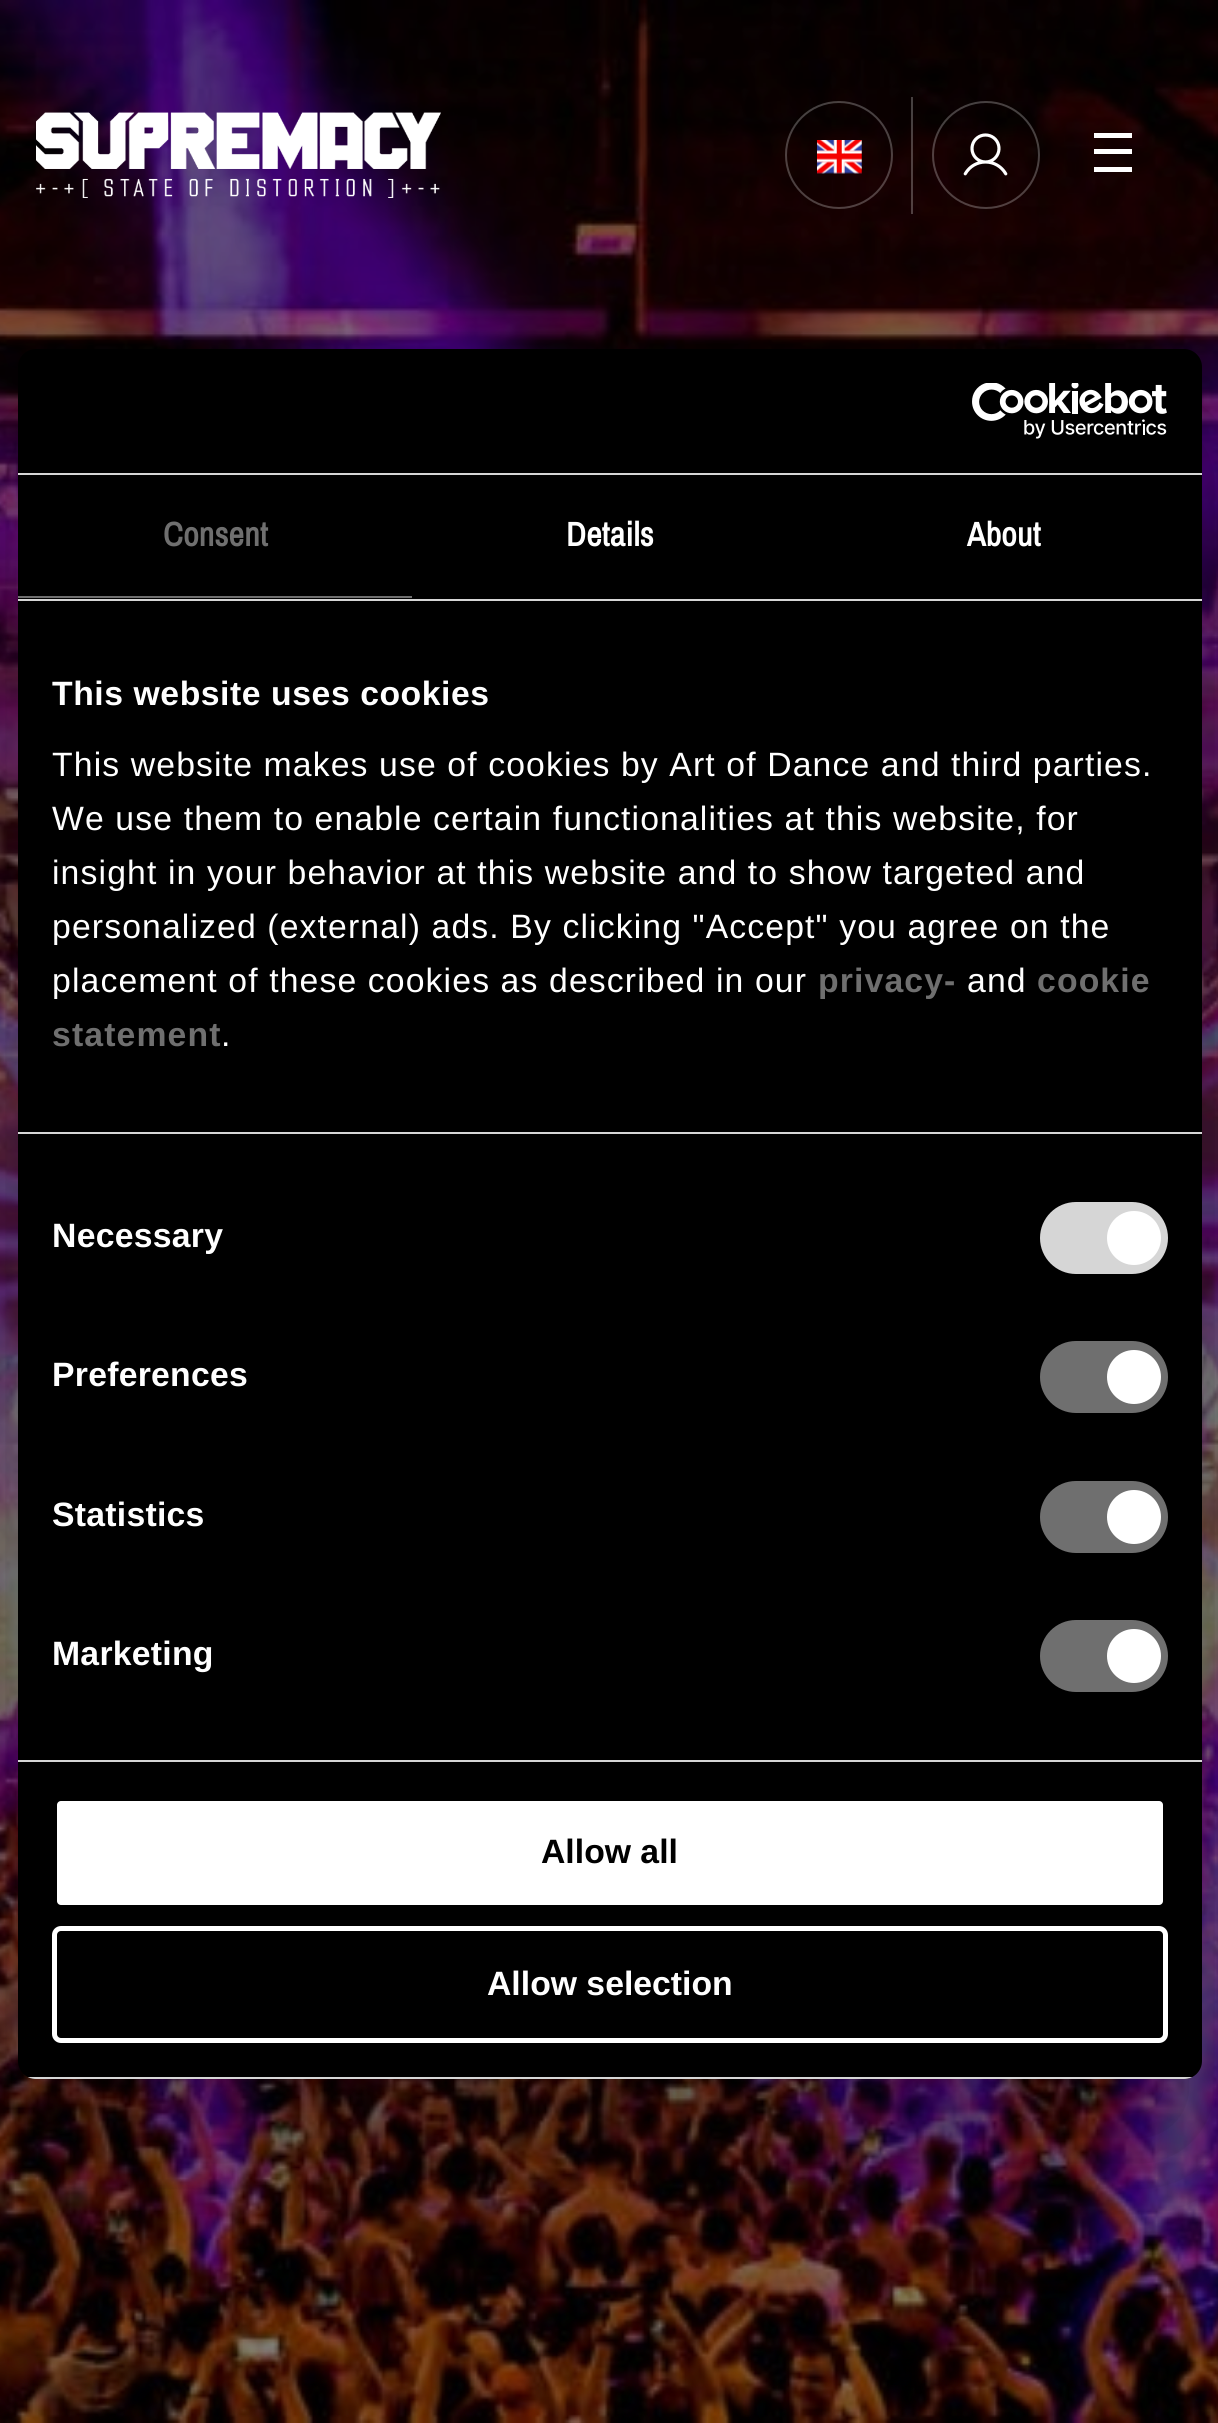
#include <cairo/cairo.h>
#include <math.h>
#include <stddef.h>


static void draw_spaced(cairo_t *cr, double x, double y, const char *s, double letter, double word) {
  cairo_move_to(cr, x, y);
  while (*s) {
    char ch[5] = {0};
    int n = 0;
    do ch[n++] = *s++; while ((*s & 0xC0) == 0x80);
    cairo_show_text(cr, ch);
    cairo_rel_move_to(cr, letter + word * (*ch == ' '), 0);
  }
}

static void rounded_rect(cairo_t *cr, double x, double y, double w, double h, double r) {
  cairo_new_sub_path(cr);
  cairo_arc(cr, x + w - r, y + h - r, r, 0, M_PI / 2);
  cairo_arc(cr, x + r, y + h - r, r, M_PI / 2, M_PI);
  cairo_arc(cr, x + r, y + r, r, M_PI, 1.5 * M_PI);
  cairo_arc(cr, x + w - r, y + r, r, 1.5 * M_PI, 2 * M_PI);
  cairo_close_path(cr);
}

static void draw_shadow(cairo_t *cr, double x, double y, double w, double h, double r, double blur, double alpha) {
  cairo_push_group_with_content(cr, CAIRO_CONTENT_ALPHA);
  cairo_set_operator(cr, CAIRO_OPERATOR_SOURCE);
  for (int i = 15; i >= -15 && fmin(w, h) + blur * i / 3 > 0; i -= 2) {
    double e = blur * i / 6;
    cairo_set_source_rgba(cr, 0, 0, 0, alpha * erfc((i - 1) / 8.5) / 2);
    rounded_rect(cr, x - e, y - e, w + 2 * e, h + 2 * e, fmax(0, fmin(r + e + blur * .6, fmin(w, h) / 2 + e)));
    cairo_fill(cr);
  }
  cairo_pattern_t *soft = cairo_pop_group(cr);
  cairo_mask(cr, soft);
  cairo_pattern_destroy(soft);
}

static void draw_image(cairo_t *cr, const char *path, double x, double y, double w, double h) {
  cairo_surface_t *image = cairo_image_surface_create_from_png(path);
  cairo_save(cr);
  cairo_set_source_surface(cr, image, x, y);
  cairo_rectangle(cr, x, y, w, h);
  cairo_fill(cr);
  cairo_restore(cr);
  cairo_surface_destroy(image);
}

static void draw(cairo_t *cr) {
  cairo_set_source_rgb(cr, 1, 1, 1);
  cairo_paint(cr);
  draw_image(cr, "images/1.png", 0, 0, 1218, 2423);
  draw_image(cr, "images/2.png", 36, 112, 405, 86);
  cairo_arc(cr, 839, 155, 53, 0, 2 * M_PI);
  cairo_set_source_rgba(cr, 1, 1, 1, 0.25);
  cairo_stroke(cr);
  draw_image(cr, "images/3.png", 817, 140, 45, 34);
  cairo_rectangle(cr, 911, 97, 2, 117);
  cairo_fill(cr);
  cairo_arc(cr, 986, 155, 53, 0, 2 * M_PI);
  cairo_stroke(cr);
  draw_image(cr, "images/4.png", 963, 133, 45, 43);
  cairo_set_source_rgb(cr, 1, 1, 1);
  cairo_rectangle(cr, 1094, 133, 38, 5);
  cairo_fill(cr);
  cairo_rectangle(cr, 1094, 149, 38, 5);
  cairo_fill(cr);
  cairo_rectangle(cr, 1094, 167, 38, 5);
  cairo_fill(cr);
  cairo_set_source_rgb(cr, 0, 0, 0);
  draw_shadow(cr, 18, 421, 1184, 1730, 18, 76.5, 0.3);
  cairo_set_source_rgb(cr, 0, 0, 0);
  rounded_rect(cr, 18, 349, 1184, 1730, 18);
  cairo_fill(cr);
  cairo_set_source_rgb(cr, 214 / 255.0, 214 / 255.0, 214 / 255.0);
  cairo_rectangle(cr, 18, 473, 1184, 2);
  cairo_fill(cr);
  draw_image(cr, "images/5.png", 972, 383, 195, 56);
  cairo_rectangle(cr, 18, 599, 1184, 2);
  cairo_fill(cr);
  cairo_set_source_rgb(cr, 111 / 255.0, 111 / 255.0, 111 / 255.0);
  cairo_rectangle(cr, 18, 596, 394, 2);
  cairo_fill(cr);
  cairo_set_source_rgb(cr, 214 / 255.0, 214 / 255.0, 214 / 255.0);
  cairo_rectangle(cr, 18, 1132, 1184, 2);
  cairo_fill(cr);
  cairo_rectangle(cr, 18, 1760, 1184, 2);
  cairo_fill(cr);
  rounded_rect(cr, 1040, 1202, 128, 72, 36);
  cairo_fill(cr);
  cairo_set_source_rgb(cr, 1, 1, 1);
  cairo_arc(cr, 1134, 1238, 27, 0, 2 * M_PI);
  cairo_fill(cr);
  cairo_set_source_rgb(cr, 111 / 255.0, 111 / 255.0, 111 / 255.0);
  rounded_rect(cr, 1040, 1341, 128, 72, 36);
  cairo_fill(cr);
  cairo_set_source_rgb(cr, 1, 1, 1);
  cairo_arc(cr, 1134, 1377, 27, 0, 2 * M_PI);
  cairo_fill(cr);
  cairo_set_source_rgb(cr, 111 / 255.0, 111 / 255.0, 111 / 255.0);
  rounded_rect(cr, 1040, 1481, 128, 72, 36);
  cairo_fill(cr);
  cairo_set_source_rgb(cr, 1, 1, 1);
  cairo_arc(cr, 1134, 1517, 27, 0, 2 * M_PI);
  cairo_fill(cr);
  cairo_set_source_rgb(cr, 111 / 255.0, 111 / 255.0, 111 / 255.0);
  rounded_rect(cr, 1040, 1620, 128, 72, 36);
  cairo_fill(cr);
  cairo_set_source_rgb(cr, 1, 1, 1);
  cairo_arc(cr, 1134, 1656, 27, 0, 2 * M_PI);
  cairo_fill(cr);
  cairo_save(cr);
  rounded_rect(cr, 18, 349, 1184, 1730, 18);
  cairo_clip(cr);
  cairo_set_source_rgb(cr, 214 / 255.0, 214 / 255.0, 214 / 255.0);
  cairo_rectangle(cr, 28, 2077, 1164, 2);
  cairo_fill(cr);
  cairo_restore(cr);
  rounded_rect(cr, 54.5, 1798.5, 1111, 109, 6.5);
  cairo_fill_preserve(cr);
  cairo_set_source_rgb(cr, 0, 0, 0);
  cairo_set_line_width(cr, 5);
  cairo_stroke(cr);
  rounded_rect(cr, 54.5, 1928.5, 1111, 112, 6.5);
  cairo_set_source_rgb(cr, 1, 1, 1);
  cairo_stroke(cr);
  cairo_select_font_face(cr, "Archivo Narrow", CAIRO_FONT_SLANT_NORMAL, CAIRO_FONT_WEIGHT_BOLD);
  cairo_set_font_size(cr, 33.75);
  cairo_set_source_rgb(cr, 111 / 255.0, 111 / 255.0, 111 / 255.0);
  draw_spaced(cr, 163, 546, "Consent", 0.25, 0);
  cairo_set_source_rgb(cr, 1, 1, 1);
  draw_spaced(cr, 566, 546, "Details", 0.25, 0);
  draw_spaced(cr, 967, 546, "About", 0.25, 0);
  cairo_select_font_face(cr, "Liberation Sans", CAIRO_FONT_SLANT_NORMAL, CAIRO_FONT_WEIGHT_BOLD);
  draw_spaced(cr, 52, 705, "This website uses cookies", 0.55, 0);
  cairo_select_font_face(cr, "Liberation Sans", CAIRO_FONT_SLANT_NORMAL, CAIRO_FONT_WEIGHT_NORMAL);
  draw_spaced(cr, 52, 776, "This website makes use of cookies by Art of Dance and third parties.", 1.12, 0);
  draw_spaced(cr, 52, 830, "We use them to enable certain functionalities at this website, for", 1.12, 0);
  draw_spaced(cr, 52, 884, "insight in your behavior at this website and to show targeted and", 1.12, 0);
  draw_spaced(cr, 52, 938, "personalized (external) ads. By clicking \"Accept\" you agree on the", 1.12, 0);
  draw_spaced(cr, 52, 992, "placement of these cookies as described in our", 1.12, 0);
  cairo_select_font_face(cr, "Liberation Sans", CAIRO_FONT_SLANT_NORMAL, CAIRO_FONT_WEIGHT_BOLD);
  cairo_set_source_rgb(cr, 111 / 255.0, 111 / 255.0, 111 / 255.0);
  draw_spaced(cr, 818, 992, "privacy-", 1.12, 0);
  cairo_select_font_face(cr, "Liberation Sans", CAIRO_FONT_SLANT_NORMAL, CAIRO_FONT_WEIGHT_NORMAL);
  cairo_set_source_rgb(cr, 1, 1, 1);
  draw_spaced(cr, 967, 992, "and", 1.12, 0);
  cairo_select_font_face(cr, "Liberation Sans", CAIRO_FONT_SLANT_NORMAL, CAIRO_FONT_WEIGHT_BOLD);
  cairo_set_source_rgb(cr, 111 / 255.0, 111 / 255.0, 111 / 255.0);
  draw_spaced(cr, 1037, 992, "cookie", 1.12, 0);
  draw_spaced(cr, 52, 1046, "statement", 1.12, 0);
  cairo_select_font_face(cr, "Liberation Sans", CAIRO_FONT_SLANT_NORMAL, CAIRO_FONT_WEIGHT_NORMAL);
  cairo_set_source_rgb(cr, 1, 1, 1);
  draw_spaced(cr, 221, 1046, ".", 1.12, 0);
  cairo_select_font_face(cr, "Liberation Sans", CAIRO_FONT_SLANT_NORMAL, CAIRO_FONT_WEIGHT_BOLD);
  draw_spaced(cr, 52, 1247, "Necessary", 0.25, 0);
  draw_spaced(cr, 52, 1386, "Preferences", 0.25, 0);
  draw_spaced(cr, 52, 1526, "Statistics", 0.25, 0);
  draw_spaced(cr, 52, 1665, "Marketing", 0.25, 0);
  cairo_set_source_rgb(cr, 0, 0, 0);
  cairo_move_to(cr, 541, 1863);
  cairo_show_text(cr, "Allow all");
  cairo_set_source_rgb(cr, 1, 1, 1);
  cairo_move_to(cr, 487, 1995);
  cairo_show_text(cr, "Allow selection");
}

int main(void) {
  cairo_surface_t *surface = cairo_image_surface_create(CAIRO_FORMAT_RGB24, 1218, 2423);
  cairo_t *cr = cairo_create(surface);
  cairo_font_options_t *options = cairo_font_options_create();
  cairo_font_options_set_hint_metrics(options, CAIRO_HINT_METRICS_OFF);
  cairo_font_options_set_hint_style(options, CAIRO_HINT_STYLE_NONE);
  cairo_set_font_options(cr, options);
  cairo_set_miter_limit(cr, 4);
  draw(cr);
  cairo_surface_write_to_png(surface, "out.png");
  cairo_font_options_destroy(options);
  cairo_destroy(cr);
  cairo_surface_destroy(surface);
  return 0;
}
